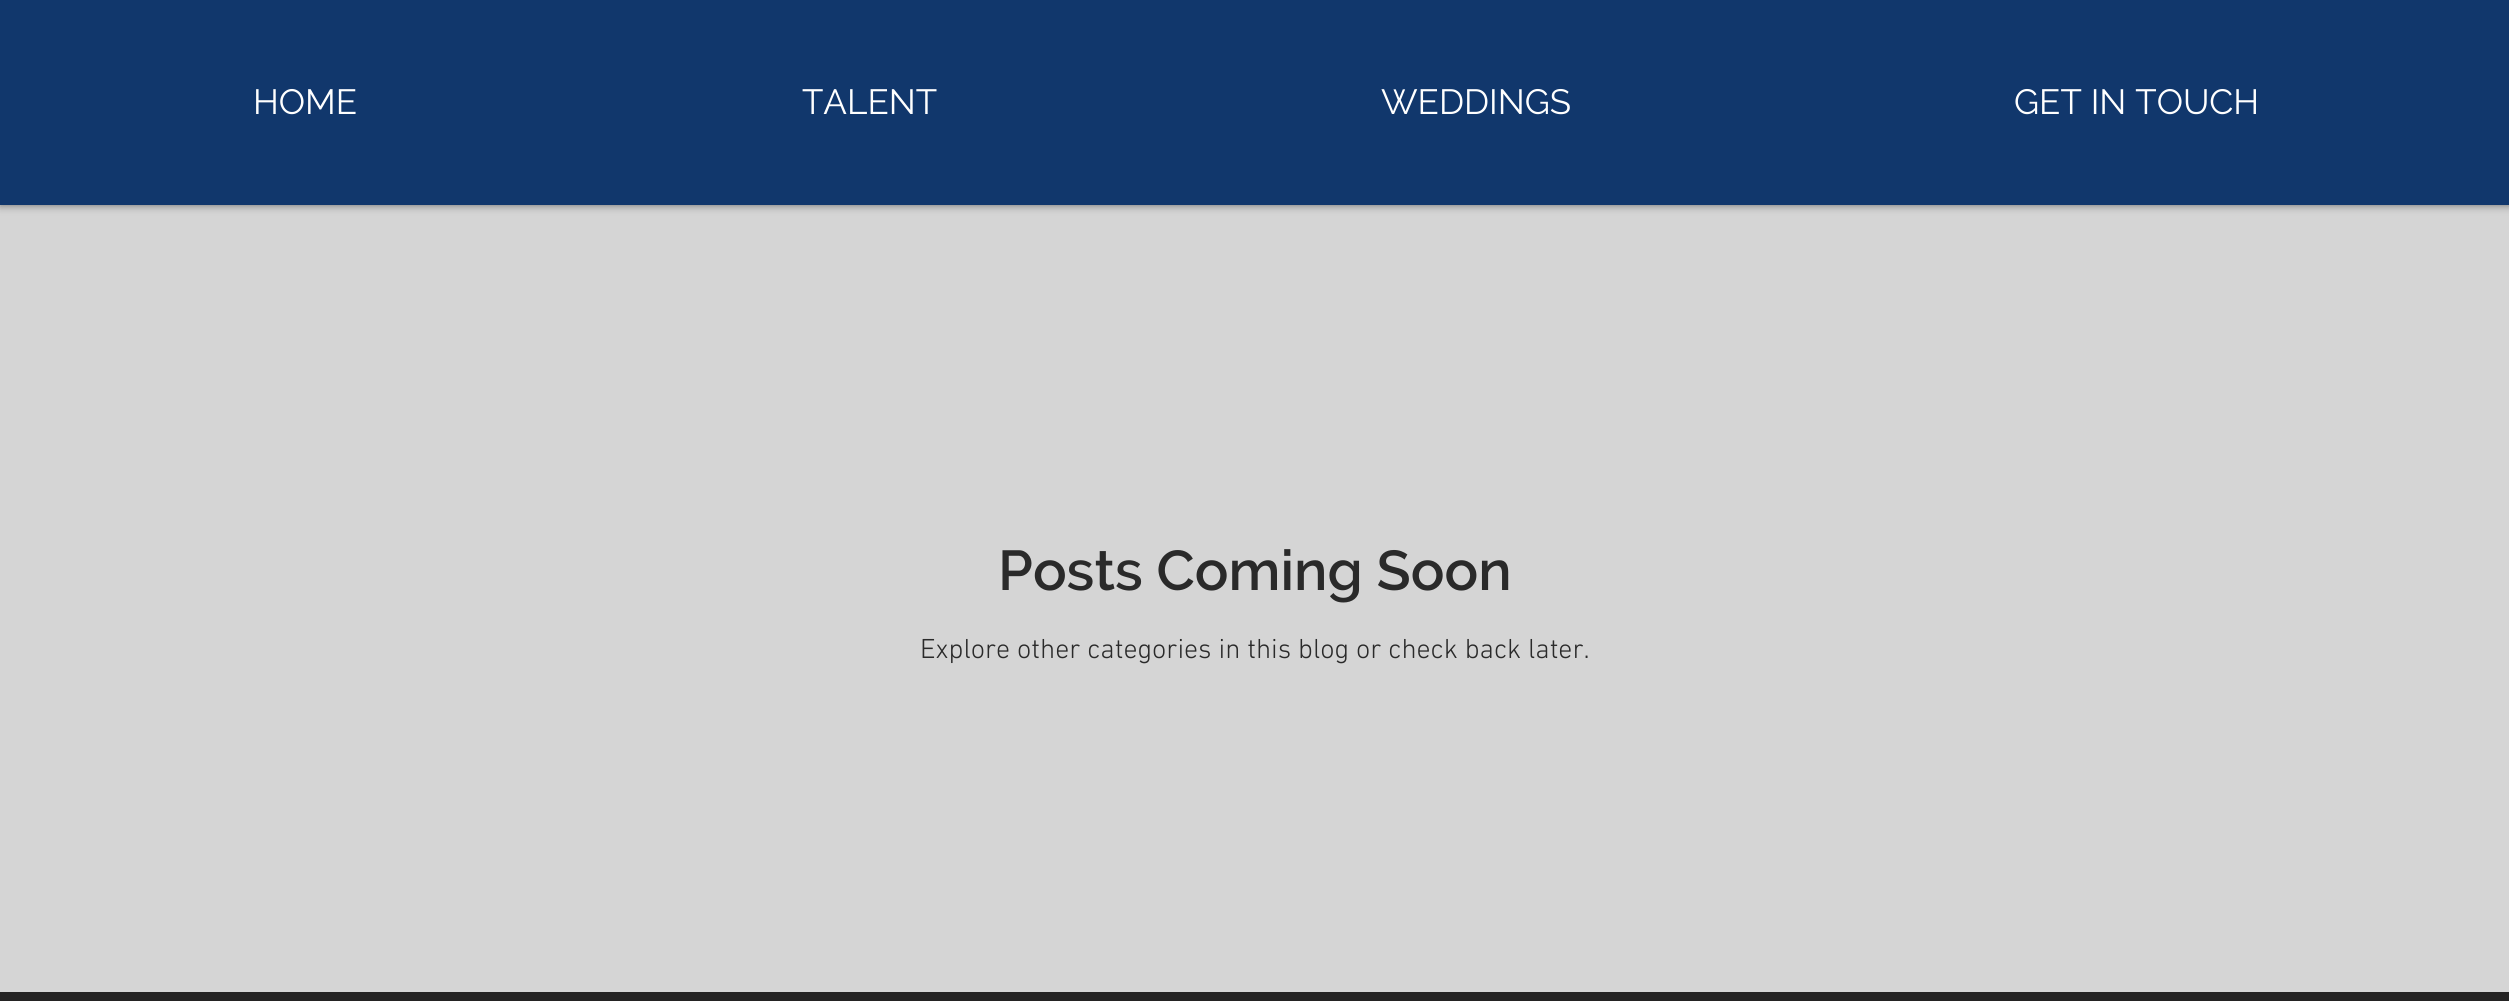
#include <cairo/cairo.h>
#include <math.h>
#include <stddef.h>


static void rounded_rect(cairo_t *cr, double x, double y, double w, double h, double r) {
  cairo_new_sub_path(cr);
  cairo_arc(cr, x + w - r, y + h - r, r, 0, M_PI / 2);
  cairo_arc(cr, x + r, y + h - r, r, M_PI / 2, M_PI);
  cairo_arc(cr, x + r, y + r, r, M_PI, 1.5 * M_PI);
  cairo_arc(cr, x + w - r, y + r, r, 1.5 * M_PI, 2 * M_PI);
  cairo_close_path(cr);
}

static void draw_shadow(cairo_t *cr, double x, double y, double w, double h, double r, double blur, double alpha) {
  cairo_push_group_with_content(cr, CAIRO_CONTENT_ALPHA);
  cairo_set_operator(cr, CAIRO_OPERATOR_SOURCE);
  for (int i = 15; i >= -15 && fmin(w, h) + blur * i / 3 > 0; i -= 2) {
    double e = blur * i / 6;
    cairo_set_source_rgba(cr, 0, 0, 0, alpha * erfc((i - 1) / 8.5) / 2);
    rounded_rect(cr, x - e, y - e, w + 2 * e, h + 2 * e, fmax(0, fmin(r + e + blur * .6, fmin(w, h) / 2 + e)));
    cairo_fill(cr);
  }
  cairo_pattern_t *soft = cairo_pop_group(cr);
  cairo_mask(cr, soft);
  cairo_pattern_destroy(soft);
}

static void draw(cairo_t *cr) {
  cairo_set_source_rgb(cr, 213 / 255.0, 213 / 255.0, 213 / 255.0);
  cairo_paint(cr);
  cairo_set_source_rgb(cr, 0, 0, 0);
  draw_shadow(cr, 0, 0, 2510, 205, 0, 4.5, 0.5);
  cairo_set_source_rgb(cr, 17 / 255.0, 55 / 255.0, 108 / 255.0);
  cairo_rectangle(cr, 0, 0, 2509, 205);
  cairo_fill(cr);
  cairo_set_source_rgb(cr, 36 / 255.0, 35 / 255.0, 35 / 255.0);
  cairo_rectangle(cr, 0, 992, 2509, 9);
  cairo_fill(cr);
  cairo_select_font_face(cr, "Raleway", CAIRO_FONT_SLANT_NORMAL, CAIRO_FONT_WEIGHT_NORMAL);
  cairo_set_font_size(cr, 35);
  cairo_set_source_rgb(cr, 1, 1, 1);
  cairo_move_to(cr, 253, 114);
  cairo_show_text(cr, "HOME");
  cairo_move_to(cr, 802, 114);
  cairo_show_text(cr, "TALENT");
  cairo_move_to(cr, 1381, 114);
  cairo_show_text(cr, "WEDDINGS");
  cairo_move_to(cr, 2014, 114);
  cairo_show_text(cr, "GET IN TOUCH");
  cairo_select_font_face(cr, "Raleway SemiBold", CAIRO_FONT_SLANT_NORMAL, CAIRO_FONT_WEIGHT_NORMAL);
  cairo_set_font_size(cr, 56);
  cairo_set_source_rgb(cr, 42 / 255.0, 42 / 255.0, 42 / 255.0);
  cairo_move_to(cr, 998, 590);
  cairo_show_text(cr, "Posts Coming Soon");
  cairo_select_font_face(cr, "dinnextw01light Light", CAIRO_FONT_SLANT_NORMAL, CAIRO_FONT_WEIGHT_NORMAL);
  cairo_set_font_size(cr, 28);
  cairo_move_to(cr, 920, 658);
  cairo_show_text(cr, "Explore other categories in this blog or check back later.");
}

int main(void) {
  cairo_surface_t *surface = cairo_image_surface_create(CAIRO_FORMAT_RGB24, 2509, 1001);
  cairo_t *cr = cairo_create(surface);
  cairo_font_options_t *options = cairo_font_options_create();
  cairo_font_options_set_hint_metrics(options, CAIRO_HINT_METRICS_OFF);
  cairo_font_options_set_hint_style(options, CAIRO_HINT_STYLE_NONE);
  cairo_set_font_options(cr, options);
  cairo_set_miter_limit(cr, 4);
  draw(cr);
  cairo_surface_write_to_png(surface, "out.png");
  cairo_font_options_destroy(options);
  cairo_destroy(cr);
  cairo_surface_destroy(surface);
  return 0;
}
